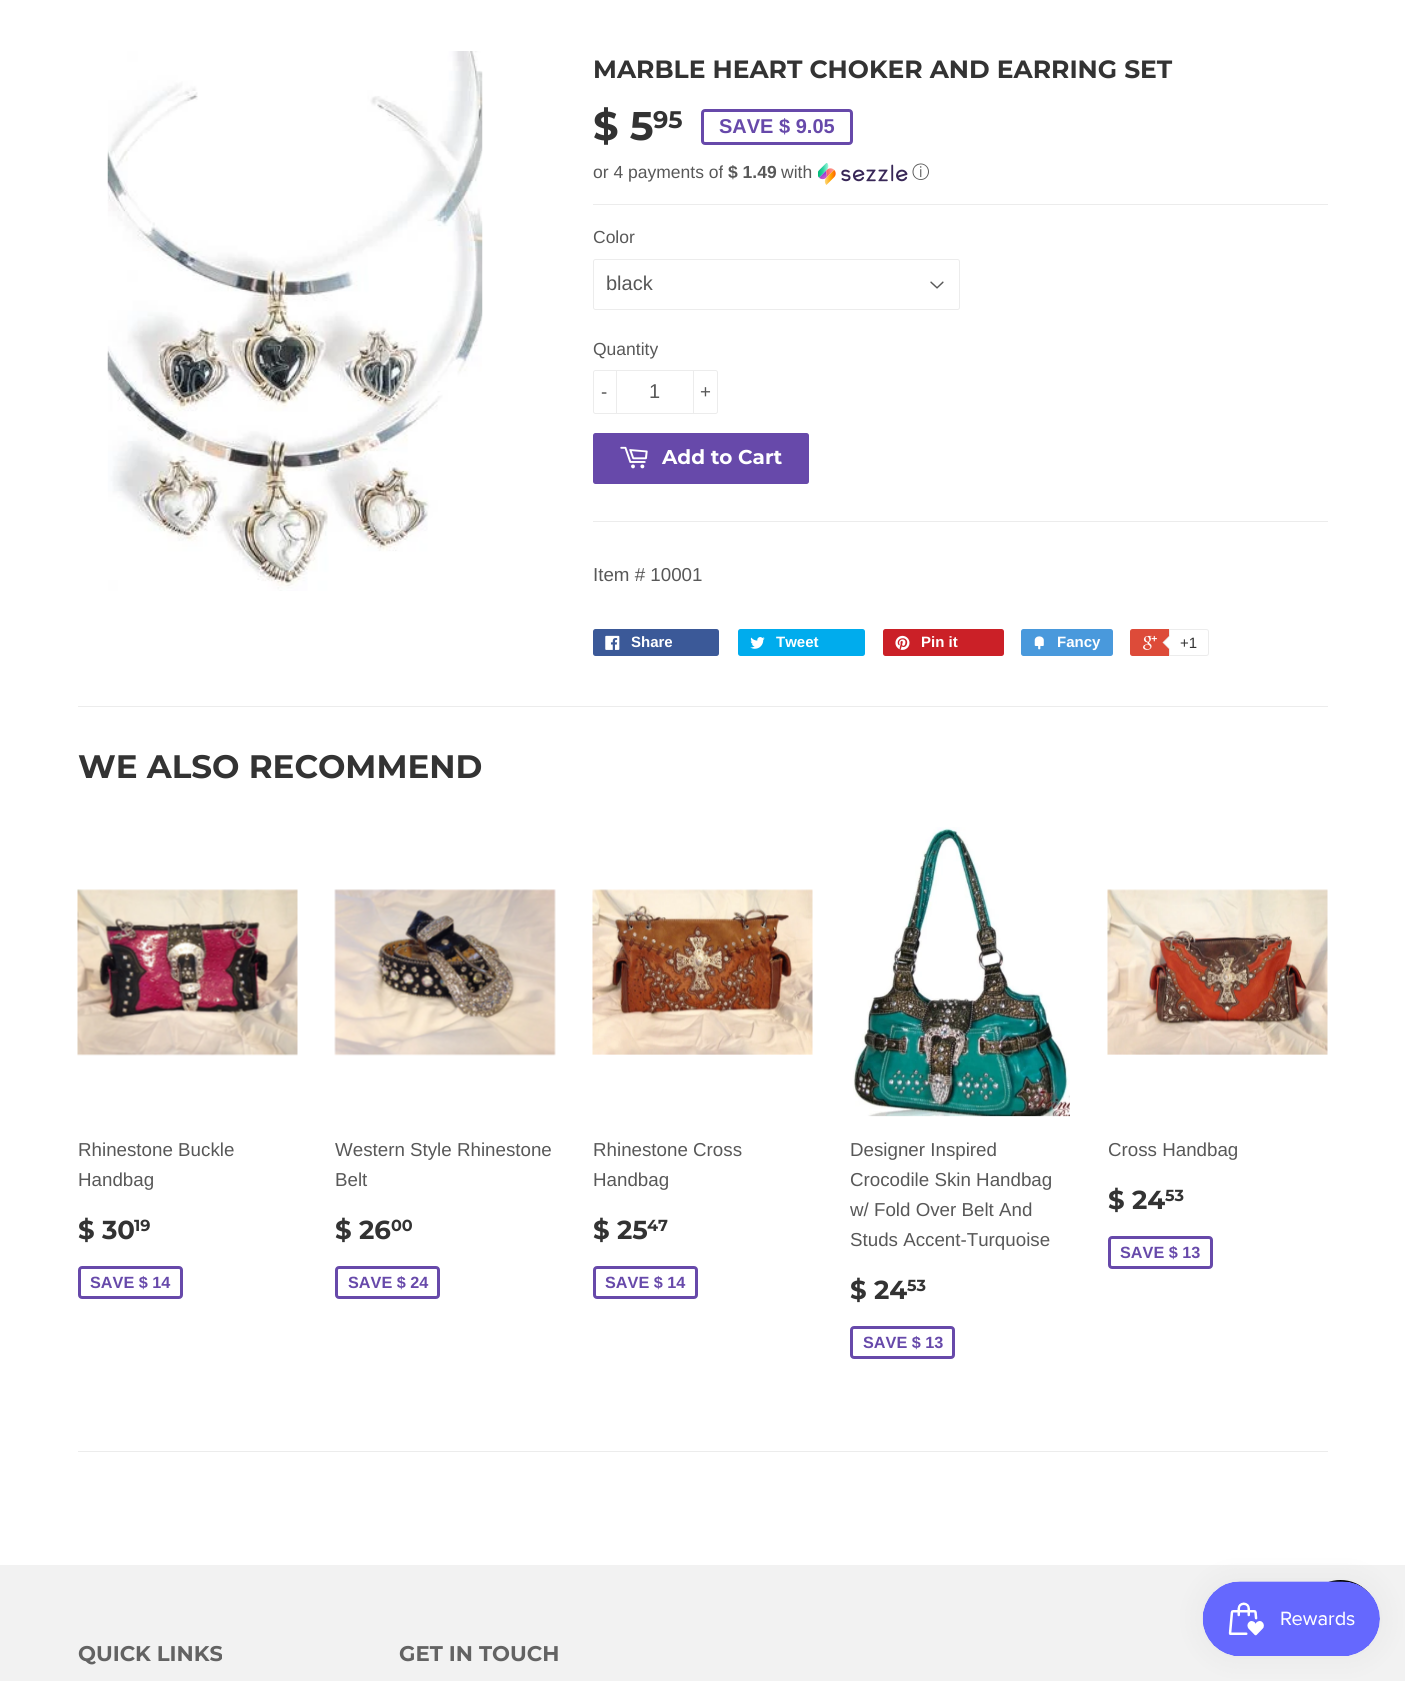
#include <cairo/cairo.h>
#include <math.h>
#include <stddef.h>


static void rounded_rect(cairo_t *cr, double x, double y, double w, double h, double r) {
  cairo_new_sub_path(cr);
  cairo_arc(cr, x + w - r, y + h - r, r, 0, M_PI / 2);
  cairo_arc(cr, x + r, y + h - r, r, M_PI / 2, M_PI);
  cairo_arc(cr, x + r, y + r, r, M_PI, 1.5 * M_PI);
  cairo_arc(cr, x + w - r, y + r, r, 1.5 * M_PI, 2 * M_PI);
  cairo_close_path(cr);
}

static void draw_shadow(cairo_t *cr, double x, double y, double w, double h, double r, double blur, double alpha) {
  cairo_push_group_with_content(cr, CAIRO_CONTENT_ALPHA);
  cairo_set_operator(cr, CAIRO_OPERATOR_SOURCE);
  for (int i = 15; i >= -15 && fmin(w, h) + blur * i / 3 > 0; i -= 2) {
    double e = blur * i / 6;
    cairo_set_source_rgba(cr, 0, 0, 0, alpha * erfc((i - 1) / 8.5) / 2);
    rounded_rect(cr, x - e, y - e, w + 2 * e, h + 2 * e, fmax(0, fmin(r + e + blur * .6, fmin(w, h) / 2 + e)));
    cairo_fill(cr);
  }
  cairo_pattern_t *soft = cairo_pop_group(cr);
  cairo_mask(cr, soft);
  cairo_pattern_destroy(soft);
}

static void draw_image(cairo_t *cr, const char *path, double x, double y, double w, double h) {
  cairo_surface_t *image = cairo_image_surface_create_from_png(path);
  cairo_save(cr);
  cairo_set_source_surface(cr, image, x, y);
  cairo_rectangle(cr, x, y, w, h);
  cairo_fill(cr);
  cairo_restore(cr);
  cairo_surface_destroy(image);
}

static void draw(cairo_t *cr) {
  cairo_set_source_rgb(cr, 1, 1, 1);
  cairo_paint(cr);
  draw_image(cr, "images/1.png", 107, 51, 376, 540);
  rounded_rect(cr, 702.5, 110.5, 149, 33, 2.5);
  cairo_set_source_rgb(cr, 103 / 255.0, 73 / 255.0, 170 / 255.0);
  cairo_set_line_width(cr, 3);
  cairo_stroke(cr);
  draw_image(cr, "images/2.png", 818, 163, 90, 22);
  cairo_set_source_rgb(cr, 236 / 255.0, 236 / 255.0, 236 / 255.0);
  cairo_rectangle(cr, 593, 204, 735, 1);
  cairo_fill(cr);
  draw_image(cr, "images/3.png", 930, 281, 14, 8);
  rounded_rect(cr, 593.5, 259.5, 366, 50, 2);
  cairo_set_line_width(cr, 1);
  cairo_stroke(cr);
  rounded_rect(cr, 593.5, 370.5, 124, 43, 2);
  cairo_stroke(cr);
  cairo_rectangle(cr, 616, 370, 1, 44);
  cairo_fill(cr);
  cairo_rectangle(cr, 693, 370, 1, 44);
  cairo_fill(cr);
  cairo_set_source_rgb(cr, 103 / 255.0, 73 / 255.0, 170 / 255.0);
  rounded_rect(cr, 593, 433, 216, 51, 2.5);
  cairo_fill(cr);
  draw_image(cr, "images/4.png", 620, 446, 28, 23);
  cairo_set_source_rgb(cr, 236 / 255.0, 236 / 255.0, 236 / 255.0);
  cairo_rectangle(cr, 593, 521, 735, 1);
  cairo_fill(cr);
  cairo_set_source_rgb(cr, 59 / 255.0, 89 / 255.0, 152 / 255.0);
  rounded_rect(cr, 593, 629, 126, 27, 2.5);
  cairo_fill(cr);
  draw_image(cr, "images/5.png", 605, 635, 15, 15);
  cairo_set_source_rgb(cr, 0, 172 / 255.0, 237 / 255.0);
  rounded_rect(cr, 738, 629, 127, 27, 2.5);
  cairo_fill(cr);
  draw_image(cr, "images/6.png", 750, 637, 15, 12);
  cairo_set_source_rgb(cr, 203 / 255.0, 32 / 255.0, 39 / 255.0);
  rounded_rect(cr, 883, 629, 121, 27, 2.5);
  cairo_fill(cr);
  draw_image(cr, "images/7.png", 895, 635, 15, 15);
  cairo_set_source_rgb(cr, 73 / 255.0, 153 / 255.0, 220 / 255.0);
  rounded_rect(cr, 1021, 629, 92, 27, 2.5);
  cairo_fill(cr);
  draw_image(cr, "images/8.png", 1034, 636, 10, 14);
  cairo_set_source_rgb(cr, 221 / 255.0, 75 / 255.0, 57 / 255.0);
  rounded_rect(cr, 1130, 629, 76, 27, 2.5);
  cairo_fill(cr);
  draw_image(cr, "images/9.png", 1143, 635, 14, 15);
  cairo_set_source_rgb(cr, 1, 1, 1);
  cairo_new_path(cr);
  cairo_move_to(cr, 1169.5, 629.5);
  cairo_line_to(cr, 1206.5, 629.5);
  cairo_curve_to(cr, 1207.5, 629.5, 1208.5, 630.5, 1208.5, 631.5);
  cairo_line_to(cr, 1208.5, 653.5);
  cairo_curve_to(cr, 1208.5, 654.5, 1207.5, 655.5, 1206.5, 655.5);
  cairo_line_to(cr, 1169.5, 655.5);
  cairo_close_path(cr);
  cairo_fill_preserve(cr);
  cairo_set_source_rgb(cr, 236 / 255.0, 236 / 255.0, 236 / 255.0);
  cairo_stroke(cr);
  cairo_new_path(cr);
  cairo_move_to(cr, 1170, 635);
  cairo_line_to(cr, 1170, 650);
  cairo_line_to(cr, 1162.5, 642.5);
  cairo_close_path(cr);
  cairo_fill(cr);
  cairo_set_source_rgb(cr, 1, 1, 1);
  cairo_new_path(cr);
  cairo_move_to(cr, 1171, 635);
  cairo_line_to(cr, 1171, 650);
  cairo_line_to(cr, 1164, 642.5);
  cairo_close_path(cr);
  cairo_fill(cr);
  cairo_set_source_rgb(cr, 236 / 255.0, 236 / 255.0, 236 / 255.0);
  cairo_rectangle(cr, 78, 706, 1250, 1);
  cairo_fill(cr);
  draw_image(cr, "images/10.png", 77, 889, 221, 167);
  rounded_rect(cr, 79.5, 1267.5, 102, 30, 2.5);
  cairo_set_source_rgb(cr, 103 / 255.0, 73 / 255.0, 170 / 255.0);
  cairo_set_line_width(cr, 3);
  cairo_stroke(cr);
  draw_image(cr, "images/11.png", 334, 889, 222, 167);
  rounded_rect(cr, 336.5, 1267.5, 102, 30, 2.5);
  cairo_stroke(cr);
  draw_image(cr, "images/12.png", 592, 889, 221, 166);
  rounded_rect(cr, 594.5, 1267.5, 102, 30, 2.5);
  cairo_stroke(cr);
  draw_image(cr, "images/13.png", 853, 827, 217, 290);
  rounded_rect(cr, 851.5, 1327.5, 102, 30, 2.5);
  cairo_stroke(cr);
  draw_image(cr, "images/14.png", 1107, 889, 221, 166);
  rounded_rect(cr, 1109.5, 1237.5, 102, 30, 2.5);
  cairo_stroke(cr);
  cairo_set_source_rgb(cr, 236 / 255.0, 236 / 255.0, 236 / 255.0);
  cairo_rectangle(cr, 78, 1451, 1250, 1);
  cairo_fill(cr);
  cairo_set_source_rgb(cr, 242 / 255.0, 242 / 255.0, 242 / 255.0);
  cairo_rectangle(cr, 0, 1565, 1405, 116);
  cairo_fill(cr);
  cairo_set_source_rgb(cr, 0, 0, 0);
  cairo_arc(cr, 1340.5, 1617.5, 37.5, 0, 2 * M_PI);
  cairo_fill(cr);
  cairo_set_source_rgb(cr, 0, 0, 0);
  draw_shadow(cr, 1203, 1581, 177, 75, 37.5, 15.5, 0.05);
  draw_image(cr, "images/15.png", 1202, 1581, 178, 75);
  cairo_select_font_face(cr, "Montserrat Thin", CAIRO_FONT_SLANT_NORMAL, CAIRO_FONT_WEIGHT_NORMAL);
  cairo_set_font_size(cr, 25);
  cairo_set_source_rgb(cr, 51 / 255.0, 51 / 255.0, 51 / 255.0);
  cairo_move_to(cr, 593, 78);
  cairo_show_text(cr, "MARBLE HEART CHOKER AND EARRING SET");
  cairo_set_font_size(cr, 40);
  cairo_move_to(cr, 593, 140);
  cairo_show_text(cr, "$ 5");
  cairo_set_font_size(cr, 24);
  cairo_move_to(cr, 653, 128);
  cairo_show_text(cr, "95");
  cairo_select_font_face(cr, "Liberation Sans", CAIRO_FONT_SLANT_NORMAL, CAIRO_FONT_WEIGHT_BOLD);
  cairo_set_font_size(cr, 20);
  cairo_set_source_rgb(cr, 103 / 255.0, 73 / 255.0, 170 / 255.0);
  cairo_move_to(cr, 719, 133);
  cairo_show_text(cr, "SAVE $ 9.05");
  cairo_select_font_face(cr, "Liberation Sans", CAIRO_FONT_SLANT_NORMAL, CAIRO_FONT_WEIGHT_NORMAL);
  cairo_set_font_size(cr, 17.5);
  cairo_set_source_rgb(cr, 88 / 255.0, 88 / 255.0, 88 / 255.0);
  cairo_move_to(cr, 593, 178);
  cairo_show_text(cr, "or 4 payments of");
  cairo_select_font_face(cr, "Liberation Sans", CAIRO_FONT_SLANT_NORMAL, CAIRO_FONT_WEIGHT_BOLD);
  cairo_move_to(cr, 728, 178);
  cairo_show_text(cr, "$ 1.49");
  cairo_select_font_face(cr, "Liberation Sans", CAIRO_FONT_SLANT_NORMAL, CAIRO_FONT_WEIGHT_NORMAL);
  cairo_move_to(cr, 781, 178);
  cairo_show_text(cr, "with");
  cairo_select_font_face(cr, "WenQuanYi Zen Hei Medium", CAIRO_FONT_SLANT_NORMAL, CAIRO_FONT_WEIGHT_NORMAL);
  cairo_move_to(cr, 912, 178);
  cairo_show_text(cr, "ⓘ");
  cairo_select_font_face(cr, "Liberation Sans", CAIRO_FONT_SLANT_NORMAL, CAIRO_FONT_WEIGHT_NORMAL);
  cairo_move_to(cr, 593, 243);
  cairo_show_text(cr, "Color");
  cairo_set_font_size(cr, 20);
  cairo_move_to(cr, 606, 290);
  cairo_show_text(cr, "black");
  cairo_set_font_size(cr, 17.5);
  cairo_move_to(cr, 593, 355);
  cairo_show_text(cr, "Quantity");
  cairo_set_font_size(cr, 18.75);
  cairo_move_to(cr, 601, 398);
  cairo_show_text(cr, "-");
  cairo_set_font_size(cr, 20);
  cairo_move_to(cr, 649, 398);
  cairo_show_text(cr, "1");
  cairo_set_font_size(cr, 18.75);
  cairo_move_to(cr, 700, 398);
  cairo_show_text(cr, "+");
  cairo_select_font_face(cr, "Montserrat Thin", CAIRO_FONT_SLANT_NORMAL, CAIRO_FONT_WEIGHT_NORMAL);
  cairo_set_font_size(cr, 20);
  cairo_set_source_rgb(cr, 1, 1, 1);
  cairo_move_to(cr, 662, 464);
  cairo_show_text(cr, "Add to Cart");
  cairo_select_font_face(cr, "Liberation Sans", CAIRO_FONT_SLANT_NORMAL, CAIRO_FONT_WEIGHT_NORMAL);
  cairo_set_font_size(cr, 18.75);
  cairo_set_source_rgb(cr, 88 / 255.0, 88 / 255.0, 88 / 255.0);
  cairo_move_to(cr, 593, 581);
  cairo_show_text(cr, "Item # 10001");
  cairo_select_font_face(cr, "Liberation Sans", CAIRO_FONT_SLANT_NORMAL, CAIRO_FONT_WEIGHT_BOLD);
  cairo_set_font_size(cr, 15);
  cairo_set_source_rgb(cr, 1, 1, 1);
  cairo_move_to(cr, 631, 647);
  cairo_show_text(cr, "Share");
  cairo_move_to(cr, 776, 647);
  cairo_show_text(cr, "Tweet");
  cairo_move_to(cr, 921, 647);
  cairo_show_text(cr, "Pin it");
  cairo_move_to(cr, 1057, 647);
  cairo_show_text(cr, "Fancy");
  cairo_select_font_face(cr, "Liberation Sans", CAIRO_FONT_SLANT_NORMAL, CAIRO_FONT_WEIGHT_NORMAL);
  cairo_set_source_rgb(cr, 51 / 255.0, 51 / 255.0, 51 / 255.0);
  cairo_move_to(cr, 1180, 648);
  cairo_show_text(cr, "+1");
  cairo_select_font_face(cr, "Montserrat Thin", CAIRO_FONT_SLANT_NORMAL, CAIRO_FONT_WEIGHT_NORMAL);
  cairo_set_font_size(cr, 32.5);
  cairo_move_to(cr, 78, 778);
  cairo_show_text(cr, "WE ALSO RECOMMEND");
  cairo_select_font_face(cr, "Liberation Sans", CAIRO_FONT_SLANT_NORMAL, CAIRO_FONT_WEIGHT_NORMAL);
  cairo_set_font_size(cr, 18.75);
  cairo_set_source_rgb(cr, 88 / 255.0, 88 / 255.0, 88 / 255.0);
  cairo_move_to(cr, 78, 1156);
  cairo_show_text(cr, "Rhinestone Buckle");
  cairo_move_to(cr, 78, 1186);
  cairo_show_text(cr, "Handbag");
  cairo_select_font_face(cr, "Montserrat Thin", CAIRO_FONT_SLANT_NORMAL, CAIRO_FONT_WEIGHT_NORMAL);
  cairo_set_font_size(cr, 26);
  cairo_set_source_rgb(cr, 51 / 255.0, 51 / 255.0, 51 / 255.0);
  cairo_move_to(cr, 78, 1239);
  cairo_show_text(cr, "$ 30");
  cairo_set_font_size(cr, 16);
  cairo_move_to(cr, 134, 1231);
  cairo_show_text(cr, "19");
  cairo_select_font_face(cr, "Liberation Sans", CAIRO_FONT_SLANT_NORMAL, CAIRO_FONT_WEIGHT_BOLD);
  cairo_set_font_size(cr, 16.25);
  cairo_set_source_rgb(cr, 103 / 255.0, 73 / 255.0, 170 / 255.0);
  cairo_move_to(cr, 90, 1288);
  cairo_show_text(cr, "SAVE $ 14");
  cairo_select_font_face(cr, "Liberation Sans", CAIRO_FONT_SLANT_NORMAL, CAIRO_FONT_WEIGHT_NORMAL);
  cairo_set_font_size(cr, 18.75);
  cairo_set_source_rgb(cr, 88 / 255.0, 88 / 255.0, 88 / 255.0);
  cairo_move_to(cr, 335, 1156);
  cairo_show_text(cr, "Western Style Rhinestone");
  cairo_move_to(cr, 335, 1186);
  cairo_show_text(cr, "Belt");
  cairo_select_font_face(cr, "Montserrat Thin", CAIRO_FONT_SLANT_NORMAL, CAIRO_FONT_WEIGHT_NORMAL);
  cairo_set_font_size(cr, 26);
  cairo_set_source_rgb(cr, 51 / 255.0, 51 / 255.0, 51 / 255.0);
  cairo_move_to(cr, 335, 1239);
  cairo_show_text(cr, "$ 26");
  cairo_set_font_size(cr, 16);
  cairo_move_to(cr, 391, 1231);
  cairo_show_text(cr, "00");
  cairo_select_font_face(cr, "Liberation Sans", CAIRO_FONT_SLANT_NORMAL, CAIRO_FONT_WEIGHT_BOLD);
  cairo_set_font_size(cr, 16.25);
  cairo_set_source_rgb(cr, 103 / 255.0, 73 / 255.0, 170 / 255.0);
  cairo_move_to(cr, 348, 1288);
  cairo_show_text(cr, "SAVE $ 24");
  cairo_select_font_face(cr, "Liberation Sans", CAIRO_FONT_SLANT_NORMAL, CAIRO_FONT_WEIGHT_NORMAL);
  cairo_set_font_size(cr, 18.75);
  cairo_set_source_rgb(cr, 88 / 255.0, 88 / 255.0, 88 / 255.0);
  cairo_move_to(cr, 593, 1156);
  cairo_show_text(cr, "Rhinestone Cross");
  cairo_move_to(cr, 593, 1186);
  cairo_show_text(cr, "Handbag");
  cairo_select_font_face(cr, "Montserrat Thin", CAIRO_FONT_SLANT_NORMAL, CAIRO_FONT_WEIGHT_NORMAL);
  cairo_set_font_size(cr, 26);
  cairo_set_source_rgb(cr, 51 / 255.0, 51 / 255.0, 51 / 255.0);
  cairo_move_to(cr, 593, 1239);
  cairo_show_text(cr, "$ 25");
  cairo_set_font_size(cr, 16);
  cairo_move_to(cr, 647, 1231);
  cairo_show_text(cr, "47");
  cairo_select_font_face(cr, "Liberation Sans", CAIRO_FONT_SLANT_NORMAL, CAIRO_FONT_WEIGHT_BOLD);
  cairo_set_font_size(cr, 16.25);
  cairo_set_source_rgb(cr, 103 / 255.0, 73 / 255.0, 170 / 255.0);
  cairo_move_to(cr, 605, 1288);
  cairo_show_text(cr, "SAVE $ 14");
  cairo_select_font_face(cr, "Liberation Sans", CAIRO_FONT_SLANT_NORMAL, CAIRO_FONT_WEIGHT_NORMAL);
  cairo_set_font_size(cr, 18.75);
  cairo_set_source_rgb(cr, 88 / 255.0, 88 / 255.0, 88 / 255.0);
  cairo_move_to(cr, 850, 1156);
  cairo_show_text(cr, "Designer Inspired");
  cairo_move_to(cr, 850, 1186);
  cairo_show_text(cr, "Crocodile Skin Handbag");
  cairo_move_to(cr, 850, 1216);
  cairo_show_text(cr, "w/ Fold Over Belt And");
  cairo_move_to(cr, 850, 1246);
  cairo_show_text(cr, "Studs Accent-Turquoise");
  cairo_select_font_face(cr, "Montserrat Thin", CAIRO_FONT_SLANT_NORMAL, CAIRO_FONT_WEIGHT_NORMAL);
  cairo_set_font_size(cr, 26);
  cairo_set_source_rgb(cr, 51 / 255.0, 51 / 255.0, 51 / 255.0);
  cairo_move_to(cr, 850, 1299);
  cairo_show_text(cr, "$ 24");
  cairo_set_font_size(cr, 16);
  cairo_move_to(cr, 907, 1291);
  cairo_show_text(cr, "53");
  cairo_select_font_face(cr, "Liberation Sans", CAIRO_FONT_SLANT_NORMAL, CAIRO_FONT_WEIGHT_BOLD);
  cairo_set_font_size(cr, 16.25);
  cairo_set_source_rgb(cr, 103 / 255.0, 73 / 255.0, 170 / 255.0);
  cairo_move_to(cr, 863, 1348);
  cairo_show_text(cr, "SAVE $ 13");
  cairo_select_font_face(cr, "Liberation Sans", CAIRO_FONT_SLANT_NORMAL, CAIRO_FONT_WEIGHT_NORMAL);
  cairo_set_font_size(cr, 18.75);
  cairo_set_source_rgb(cr, 88 / 255.0, 88 / 255.0, 88 / 255.0);
  cairo_move_to(cr, 1108, 1156);
  cairo_show_text(cr, "Cross Handbag");
  cairo_select_font_face(cr, "Montserrat Thin", CAIRO_FONT_SLANT_NORMAL, CAIRO_FONT_WEIGHT_NORMAL);
  cairo_set_font_size(cr, 26);
  cairo_set_source_rgb(cr, 51 / 255.0, 51 / 255.0, 51 / 255.0);
  cairo_move_to(cr, 1108, 1209);
  cairo_show_text(cr, "$ 24");
  cairo_set_font_size(cr, 16);
  cairo_move_to(cr, 1165, 1201);
  cairo_show_text(cr, "53");
  cairo_select_font_face(cr, "Liberation Sans", CAIRO_FONT_SLANT_NORMAL, CAIRO_FONT_WEIGHT_BOLD);
  cairo_set_font_size(cr, 16.25);
  cairo_set_source_rgb(cr, 103 / 255.0, 73 / 255.0, 170 / 255.0);
  cairo_move_to(cr, 1120, 1258);
  cairo_show_text(cr, "SAVE $ 13");
  cairo_select_font_face(cr, "Montserrat Thin", CAIRO_FONT_SLANT_NORMAL, CAIRO_FONT_WEIGHT_NORMAL);
  cairo_set_font_size(cr, 21.25);
  cairo_set_source_rgb(cr, 99 / 255.0, 99 / 255.0, 99 / 255.0);
  cairo_move_to(cr, 78, 1661);
  cairo_show_text(cr, "QUICK LINKS");
  cairo_move_to(cr, 399, 1661);
  cairo_show_text(cr, "GET IN TOUCH");
}

int main(void) {
  cairo_surface_t *surface = cairo_image_surface_create(CAIRO_FORMAT_RGB24, 1405, 1681);
  cairo_t *cr = cairo_create(surface);
  cairo_font_options_t *options = cairo_font_options_create();
  cairo_font_options_set_hint_metrics(options, CAIRO_HINT_METRICS_OFF);
  cairo_font_options_set_hint_style(options, CAIRO_HINT_STYLE_NONE);
  cairo_set_font_options(cr, options);
  cairo_set_miter_limit(cr, 4);
  draw(cr);
  cairo_surface_write_to_png(surface, "out.png");
  cairo_font_options_destroy(options);
  cairo_destroy(cr);
  cairo_surface_destroy(surface);
  return 0;
}
